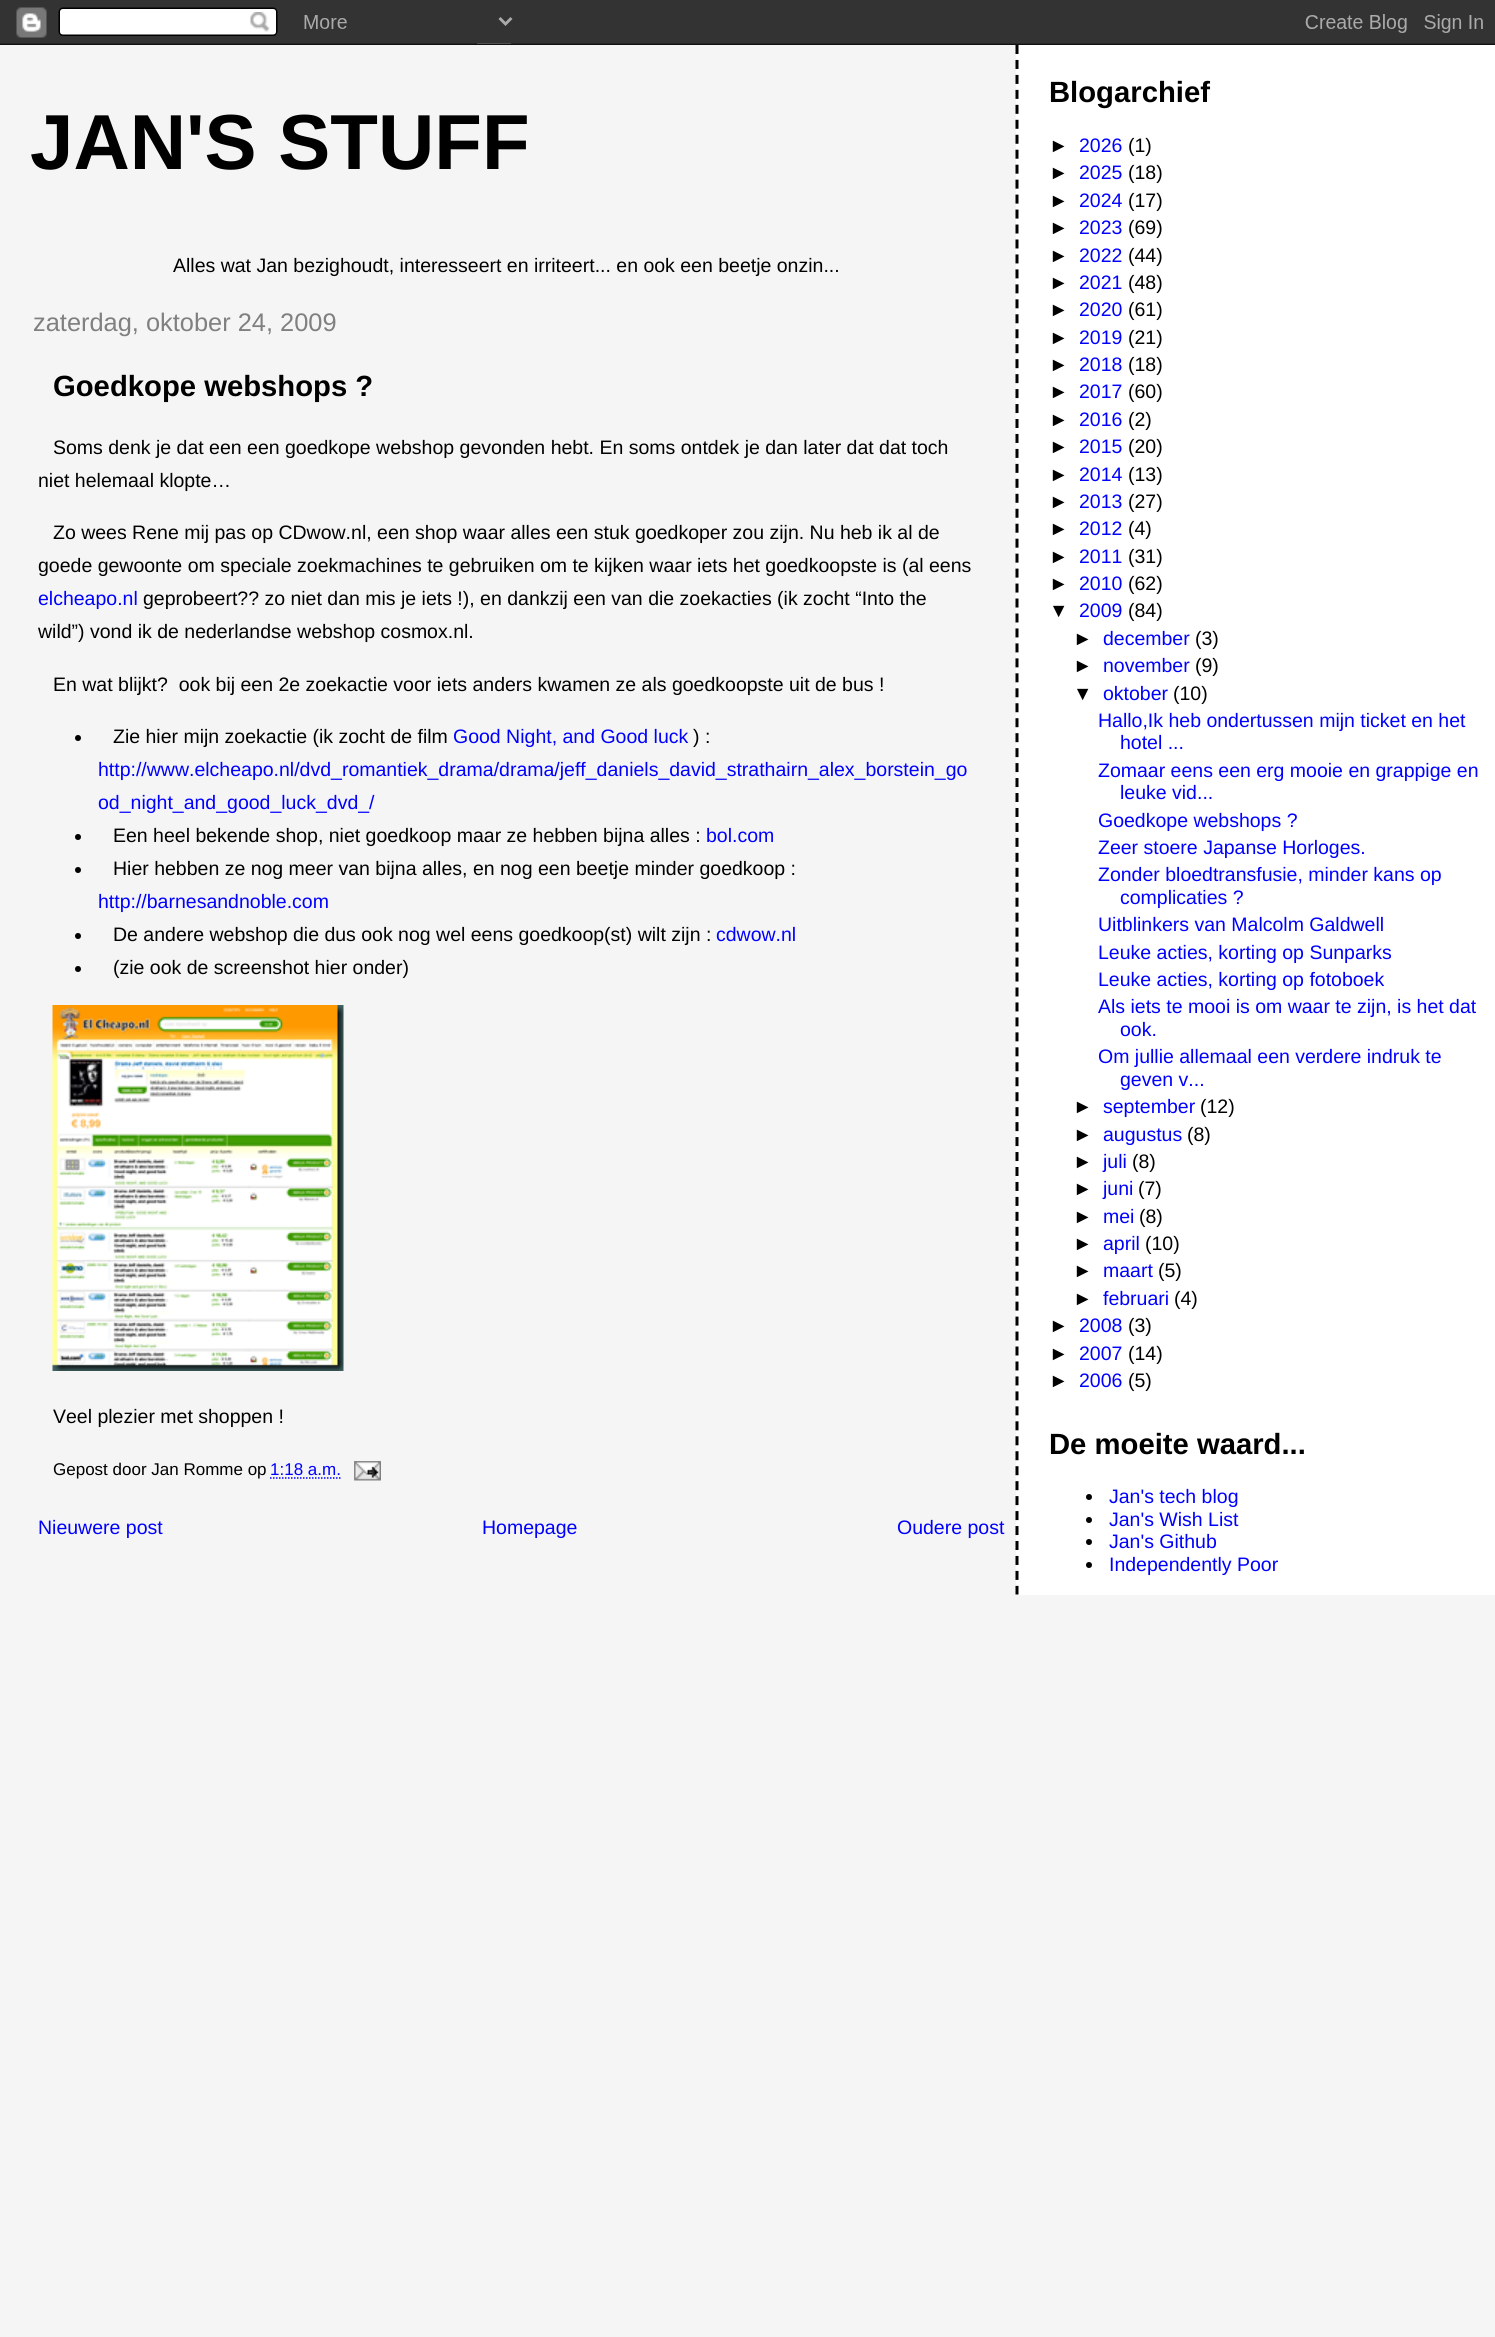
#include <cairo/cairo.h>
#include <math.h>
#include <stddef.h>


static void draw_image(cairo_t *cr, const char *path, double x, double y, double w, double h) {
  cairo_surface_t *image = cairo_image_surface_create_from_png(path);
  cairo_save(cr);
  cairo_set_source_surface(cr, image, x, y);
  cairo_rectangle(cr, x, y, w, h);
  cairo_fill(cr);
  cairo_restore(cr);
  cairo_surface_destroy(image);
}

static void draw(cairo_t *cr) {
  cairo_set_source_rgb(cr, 245 / 255.0, 245 / 255.0, 245 / 255.0);
  cairo_paint(cr);
  draw_image(cr, "images/1.png", 0, 0, 1495, 45);
  cairo_set_source_rgb(cr, 0, 0, 0);
  cairo_arc(cr, 78, 738, 3, 0, 2 * M_PI);
  cairo_fill(cr);
  cairo_arc(cr, 78, 837, 3, 0, 2 * M_PI);
  cairo_fill(cr);
  cairo_arc(cr, 78, 870, 3, 0, 2 * M_PI);
  cairo_fill(cr);
  cairo_arc(cr, 78, 936, 3, 0, 2 * M_PI);
  cairo_fill(cr);
  cairo_arc(cr, 78, 969, 3, 0, 2 * M_PI);
  cairo_fill(cr);
  draw_image(cr, "images/2.png", 52, 1005, 292, 366);
  cairo_new_path(cr);
  cairo_move_to(cr, 270, 1478);
  cairo_line_to(cr, 341, 1478);
  cairo_set_source_rgb(cr, 0, 0, 1);
  cairo_set_line_width(cr, 1.5);
  cairo_set_dash(cr, (double[]){1.5, 1.5}, 2, 0);
  cairo_stroke(cr);
  draw_image(cr, "images/3.png", 354, 1461, 27, 20);
  cairo_set_source_rgb(cr, 1, 1, 1);
  cairo_rectangle(cr, 1016, 45, 479, 1550);
  cairo_fill(cr);
  cairo_new_path(cr);
  cairo_move_to(cr, 1017, 45);
  cairo_line_to(cr, 1017, 1594.5);
  cairo_set_source_rgb(cr, 0, 0, 0);
  cairo_set_line_width(cr, 3);
  cairo_set_dash(cr, (double[]){9, 5.96}, 2, 0);
  cairo_stroke(cr);
  cairo_arc(cr, 1089, 1497, 3, 0, 2 * M_PI);
  cairo_fill(cr);
  cairo_arc(cr, 1089, 1520, 3, 0, 2 * M_PI);
  cairo_fill(cr);
  cairo_arc(cr, 1089, 1542, 3, 0, 2 * M_PI);
  cairo_fill(cr);
  cairo_arc(cr, 1089, 1565, 3, 0, 2 * M_PI);
  cairo_fill(cr);
  cairo_select_font_face(cr, "Liberation Sans", CAIRO_FONT_SLANT_NORMAL, CAIRO_FONT_WEIGHT_BOLD);
  cairo_set_font_size(cr, 78);
  cairo_move_to(cr, 30, 169);
  cairo_show_text(cr, "JAN'S STUFF");
  cairo_select_font_face(cr, "Liberation Sans", CAIRO_FONT_SLANT_NORMAL, CAIRO_FONT_WEIGHT_NORMAL);
  cairo_set_font_size(cr, 19.5);
  cairo_move_to(cr, 173, 272);
  cairo_show_text(cr, "Alles wat Jan bezighoudt, interesseert en irriteert... en ook een beetje onzin...");
  cairo_set_font_size(cr, 25.4);
  cairo_set_source_rgb(cr, 128 / 255.0, 128 / 255.0, 128 / 255.0);
  cairo_move_to(cr, 33, 331);
  cairo_show_text(cr, "zaterdag, oktober 24, 2009");
  cairo_select_font_face(cr, "Liberation Sans", CAIRO_FONT_SLANT_NORMAL, CAIRO_FONT_WEIGHT_BOLD);
  cairo_set_font_size(cr, 29.25);
  cairo_set_source_rgb(cr, 0, 0, 0);
  cairo_move_to(cr, 53, 396);
  cairo_show_text(cr, "Goedkope webshops ?");
  cairo_select_font_face(cr, "Liberation Sans", CAIRO_FONT_SLANT_NORMAL, CAIRO_FONT_WEIGHT_NORMAL);
  cairo_set_font_size(cr, 19.5);
  cairo_move_to(cr, 53, 454);
  cairo_show_text(cr, "Soms denk je dat een een goedkope webshop gevonden hebt. En soms ontdek je dan later dat dat toch");
  cairo_move_to(cr, 38, 487);
  cairo_show_text(cr, "niet helemaal klopte…");
  cairo_move_to(cr, 53, 539);
  cairo_show_text(cr, "Zo wees Rene mij pas op CDwow.nl, een shop waar alles een stuk goedkoper zou zijn. Nu heb ik al de");
  cairo_move_to(cr, 38, 572);
  cairo_show_text(cr, "goede gewoonte om speciale zoekmachines te gebruiken om te kijken waar iets het goedkoopste is (al eens");
  cairo_set_source_rgb(cr, 0, 0, 1);
  cairo_move_to(cr, 38, 605);
  cairo_show_text(cr, "elcheapo.nl");
  cairo_set_source_rgb(cr, 0, 0, 0);
  cairo_move_to(cr, 143, 605);
  cairo_show_text(cr, "geprobeert?\077 zo niet dan mis je iets !), en dankzij een van die zoekacties (ik zocht “Into the");
  cairo_move_to(cr, 38, 638);
  cairo_show_text(cr, "wild”) vond ik de nederlandse webshop cosmox.nl.");
  cairo_move_to(cr, 53, 691);
  cairo_show_text(cr, "En wat blijkt?  ook bij een 2e zoekactie voor iets anders kwamen ze als goedkoopste uit de bus !");
  cairo_move_to(cr, 113, 743);
  cairo_show_text(cr, "Zie hier mijn zoekactie (ik zocht de film");
  cairo_set_source_rgb(cr, 0, 0, 1);
  cairo_move_to(cr, 453, 743);
  cairo_show_text(cr, "Good Night, and Good luck");
  cairo_set_source_rgb(cr, 0, 0, 0);
  cairo_move_to(cr, 693, 743);
  cairo_show_text(cr, ") :");
  cairo_set_source_rgb(cr, 0, 0, 1);
  cairo_move_to(cr, 98, 776);
  cairo_show_text(cr, "http://www.elcheapo.nl/dvd_romantiek_drama/drama/jeff_daniels_david_strathairn_alex_borstein_go");
  cairo_move_to(cr, 98, 809);
  cairo_show_text(cr, "od_night_and_good_luck_dvd_/");
  cairo_set_source_rgb(cr, 0, 0, 0);
  cairo_move_to(cr, 113, 842);
  cairo_show_text(cr, "Een heel bekende shop, niet goedkoop maar ze hebben bijna alles :");
  cairo_set_source_rgb(cr, 0, 0, 1);
  cairo_move_to(cr, 706, 842);
  cairo_show_text(cr, "bol.com");
  cairo_set_source_rgb(cr, 0, 0, 0);
  cairo_move_to(cr, 113, 875);
  cairo_show_text(cr, "Hier hebben ze nog meer van bijna alles, en nog een beetje minder goedkoop :");
  cairo_set_source_rgb(cr, 0, 0, 1);
  cairo_move_to(cr, 98, 908);
  cairo_show_text(cr, "http://barnesandnoble.com");
  cairo_set_source_rgb(cr, 0, 0, 0);
  cairo_move_to(cr, 113, 941);
  cairo_show_text(cr, "De andere webshop die dus ook nog wel eens goedkoop(st) wilt zijn :");
  cairo_set_source_rgb(cr, 0, 0, 1);
  cairo_move_to(cr, 716, 941);
  cairo_show_text(cr, "cdwow.nl");
  cairo_set_source_rgb(cr, 0, 0, 0);
  cairo_move_to(cr, 113, 974);
  cairo_show_text(cr, "(zie ook de screenshot hier onder)");
  cairo_move_to(cr, 53, 1423);
  cairo_show_text(cr, "Veel plezier met shoppen !");
  cairo_set_font_size(cr, 17);
  cairo_move_to(cr, 53, 1475);
  cairo_show_text(cr, "Gepost door Jan Romme op");
  cairo_set_source_rgb(cr, 0, 0, 1);
  cairo_move_to(cr, 270, 1475);
  cairo_show_text(cr, "1:18 a.m.");
  cairo_set_font_size(cr, 19.5);
  cairo_move_to(cr, 38, 1534);
  cairo_show_text(cr, "Nieuwere post");
  cairo_move_to(cr, 482, 1534);
  cairo_show_text(cr, "Homepage");
  cairo_move_to(cr, 897, 1534);
  cairo_show_text(cr, "Oudere post");
  cairo_select_font_face(cr, "Liberation Sans", CAIRO_FONT_SLANT_NORMAL, CAIRO_FONT_WEIGHT_BOLD);
  cairo_set_font_size(cr, 29.25);
  cairo_set_source_rgb(cr, 0, 0, 0);
  cairo_move_to(cr, 1049, 102);
  cairo_show_text(cr, "Blogarchief");
  cairo_select_font_face(cr, "Liberation Sans", CAIRO_FONT_SLANT_NORMAL, CAIRO_FONT_WEIGHT_NORMAL);
  cairo_set_font_size(cr, 19.5);
  cairo_move_to(cr, 1049, 152);
  cairo_show_text(cr, "►");
  cairo_set_source_rgb(cr, 0, 0, 1);
  cairo_move_to(cr, 1079, 152);
  cairo_show_text(cr, "2026");
  cairo_set_source_rgb(cr, 0, 0, 0);
  cairo_move_to(cr, 1128, 152);
  cairo_show_text(cr, "(1)");
  cairo_move_to(cr, 1049, 179);
  cairo_show_text(cr, "►");
  cairo_set_source_rgb(cr, 0, 0, 1);
  cairo_move_to(cr, 1079, 179);
  cairo_show_text(cr, "2025");
  cairo_set_source_rgb(cr, 0, 0, 0);
  cairo_move_to(cr, 1128, 179);
  cairo_show_text(cr, "(18)");
  cairo_move_to(cr, 1049, 207);
  cairo_show_text(cr, "►");
  cairo_set_source_rgb(cr, 0, 0, 1);
  cairo_move_to(cr, 1079, 207);
  cairo_show_text(cr, "2024");
  cairo_set_source_rgb(cr, 0, 0, 0);
  cairo_move_to(cr, 1128, 207);
  cairo_show_text(cr, "(17)");
  cairo_move_to(cr, 1049, 234);
  cairo_show_text(cr, "►");
  cairo_set_source_rgb(cr, 0, 0, 1);
  cairo_move_to(cr, 1079, 234);
  cairo_show_text(cr, "2023");
  cairo_set_source_rgb(cr, 0, 0, 0);
  cairo_move_to(cr, 1128, 234);
  cairo_show_text(cr, "(69)");
  cairo_move_to(cr, 1049, 262);
  cairo_show_text(cr, "►");
  cairo_set_source_rgb(cr, 0, 0, 1);
  cairo_move_to(cr, 1079, 262);
  cairo_show_text(cr, "2022");
  cairo_set_source_rgb(cr, 0, 0, 0);
  cairo_move_to(cr, 1128, 262);
  cairo_show_text(cr, "(44)");
  cairo_move_to(cr, 1049, 289);
  cairo_show_text(cr, "►");
  cairo_set_source_rgb(cr, 0, 0, 1);
  cairo_move_to(cr, 1079, 289);
  cairo_show_text(cr, "2021");
  cairo_set_source_rgb(cr, 0, 0, 0);
  cairo_move_to(cr, 1128, 289);
  cairo_show_text(cr, "(48)");
  cairo_move_to(cr, 1049, 316);
  cairo_show_text(cr, "►");
  cairo_set_source_rgb(cr, 0, 0, 1);
  cairo_move_to(cr, 1079, 316);
  cairo_show_text(cr, "2020");
  cairo_set_source_rgb(cr, 0, 0, 0);
  cairo_move_to(cr, 1128, 316);
  cairo_show_text(cr, "(61)");
  cairo_move_to(cr, 1049, 344);
  cairo_show_text(cr, "►");
  cairo_set_source_rgb(cr, 0, 0, 1);
  cairo_move_to(cr, 1079, 344);
  cairo_show_text(cr, "2019");
  cairo_set_source_rgb(cr, 0, 0, 0);
  cairo_move_to(cr, 1128, 344);
  cairo_show_text(cr, "(21)");
  cairo_move_to(cr, 1049, 371);
  cairo_show_text(cr, "►");
  cairo_set_source_rgb(cr, 0, 0, 1);
  cairo_move_to(cr, 1079, 371);
  cairo_show_text(cr, "2018");
  cairo_set_source_rgb(cr, 0, 0, 0);
  cairo_move_to(cr, 1128, 371);
  cairo_show_text(cr, "(18)");
  cairo_move_to(cr, 1049, 398);
  cairo_show_text(cr, "►");
  cairo_set_source_rgb(cr, 0, 0, 1);
  cairo_move_to(cr, 1079, 398);
  cairo_show_text(cr, "2017");
  cairo_set_source_rgb(cr, 0, 0, 0);
  cairo_move_to(cr, 1128, 398);
  cairo_show_text(cr, "(60)");
  cairo_move_to(cr, 1049, 426);
  cairo_show_text(cr, "►");
  cairo_set_source_rgb(cr, 0, 0, 1);
  cairo_move_to(cr, 1079, 426);
  cairo_show_text(cr, "2016");
  cairo_set_source_rgb(cr, 0, 0, 0);
  cairo_move_to(cr, 1128, 426);
  cairo_show_text(cr, "(2)");
  cairo_move_to(cr, 1049, 453);
  cairo_show_text(cr, "►");
  cairo_set_source_rgb(cr, 0, 0, 1);
  cairo_move_to(cr, 1079, 453);
  cairo_show_text(cr, "2015");
  cairo_set_source_rgb(cr, 0, 0, 0);
  cairo_move_to(cr, 1128, 453);
  cairo_show_text(cr, "(20)");
  cairo_move_to(cr, 1049, 481);
  cairo_show_text(cr, "►");
  cairo_set_source_rgb(cr, 0, 0, 1);
  cairo_move_to(cr, 1079, 481);
  cairo_show_text(cr, "2014");
  cairo_set_source_rgb(cr, 0, 0, 0);
  cairo_move_to(cr, 1128, 481);
  cairo_show_text(cr, "(13)");
  cairo_move_to(cr, 1049, 508);
  cairo_show_text(cr, "►");
  cairo_set_source_rgb(cr, 0, 0, 1);
  cairo_move_to(cr, 1079, 508);
  cairo_show_text(cr, "2013");
  cairo_set_source_rgb(cr, 0, 0, 0);
  cairo_move_to(cr, 1128, 508);
  cairo_show_text(cr, "(27)");
  cairo_move_to(cr, 1049, 535);
  cairo_show_text(cr, "►");
  cairo_set_source_rgb(cr, 0, 0, 1);
  cairo_move_to(cr, 1079, 535);
  cairo_show_text(cr, "2012");
  cairo_set_source_rgb(cr, 0, 0, 0);
  cairo_move_to(cr, 1128, 535);
  cairo_show_text(cr, "(4)");
  cairo_move_to(cr, 1049, 563);
  cairo_show_text(cr, "►");
  cairo_set_source_rgb(cr, 0, 0, 1);
  cairo_move_to(cr, 1079, 563);
  cairo_show_text(cr, "2011");
  cairo_set_source_rgb(cr, 0, 0, 0);
  cairo_move_to(cr, 1128, 563);
  cairo_show_text(cr, "(31)");
  cairo_move_to(cr, 1049, 590);
  cairo_show_text(cr, "►");
  cairo_set_source_rgb(cr, 0, 0, 1);
  cairo_move_to(cr, 1079, 590);
  cairo_show_text(cr, "2010");
  cairo_set_source_rgb(cr, 0, 0, 0);
  cairo_move_to(cr, 1128, 590);
  cairo_show_text(cr, "(62)");
  cairo_move_to(cr, 1049, 617);
  cairo_show_text(cr, "▼");
  cairo_set_source_rgb(cr, 0, 0, 1);
  cairo_move_to(cr, 1079, 617);
  cairo_show_text(cr, "2009");
  cairo_set_source_rgb(cr, 0, 0, 0);
  cairo_move_to(cr, 1128, 617);
  cairo_show_text(cr, "(84)");
  cairo_move_to(cr, 1073, 645);
  cairo_show_text(cr, "►");
  cairo_set_source_rgb(cr, 0, 0, 1);
  cairo_move_to(cr, 1103, 645);
  cairo_show_text(cr, "december");
  cairo_set_source_rgb(cr, 0, 0, 0);
  cairo_move_to(cr, 1195, 645);
  cairo_show_text(cr, "(3)");
  cairo_move_to(cr, 1073, 672);
  cairo_show_text(cr, "►");
  cairo_set_source_rgb(cr, 0, 0, 1);
  cairo_move_to(cr, 1103, 672);
  cairo_show_text(cr, "november");
  cairo_set_source_rgb(cr, 0, 0, 0);
  cairo_move_to(cr, 1195, 672);
  cairo_show_text(cr, "(9)");
  cairo_move_to(cr, 1073, 700);
  cairo_show_text(cr, "▼");
  cairo_set_source_rgb(cr, 0, 0, 1);
  cairo_move_to(cr, 1103, 700);
  cairo_show_text(cr, "oktober");
  cairo_set_source_rgb(cr, 0, 0, 0);
  cairo_move_to(cr, 1173, 700);
  cairo_show_text(cr, "(10)");
  cairo_set_source_rgb(cr, 0, 0, 1);
  cairo_move_to(cr, 1098, 727);
  cairo_show_text(cr, "Hallo,Ik heb ondertussen mijn ticket en het");
  cairo_move_to(cr, 1120, 749);
  cairo_show_text(cr, "hotel ...");
  cairo_move_to(cr, 1098, 777);
  cairo_show_text(cr, "Zomaar eens een erg mooie en grappige en");
  cairo_move_to(cr, 1120, 799);
  cairo_show_text(cr, "leuke vid...");
  cairo_move_to(cr, 1098, 827);
  cairo_show_text(cr, "Goedkope webshops ?");
  cairo_move_to(cr, 1098, 854);
  cairo_show_text(cr, "Zeer stoere Japanse Horloges.");
  cairo_move_to(cr, 1098, 881);
  cairo_show_text(cr, "Zonder bloedtransfusie, minder kans op");
  cairo_move_to(cr, 1120, 904);
  cairo_show_text(cr, "complicaties ?");
  cairo_move_to(cr, 1098, 931);
  cairo_show_text(cr, "Uitblinkers van Malcolm Galdwell");
  cairo_move_to(cr, 1098, 959);
  cairo_show_text(cr, "Leuke acties, korting op Sunparks");
  cairo_move_to(cr, 1098, 986);
  cairo_show_text(cr, "Leuke acties, korting op fotoboek");
  cairo_move_to(cr, 1098, 1013);
  cairo_show_text(cr, "Als iets te mooi is om waar te zijn, is het dat");
  cairo_move_to(cr, 1120, 1036);
  cairo_show_text(cr, "ook.");
  cairo_move_to(cr, 1098, 1063);
  cairo_show_text(cr, "Om jullie allemaal een verdere indruk te");
  cairo_move_to(cr, 1120, 1086);
  cairo_show_text(cr, "geven v...");
  cairo_set_source_rgb(cr, 0, 0, 0);
  cairo_move_to(cr, 1073, 1113);
  cairo_show_text(cr, "►");
  cairo_set_source_rgb(cr, 0, 0, 1);
  cairo_move_to(cr, 1103, 1113);
  cairo_show_text(cr, "september");
  cairo_set_source_rgb(cr, 0, 0, 0);
  cairo_move_to(cr, 1200, 1113);
  cairo_show_text(cr, "(12)");
  cairo_move_to(cr, 1073, 1141);
  cairo_show_text(cr, "►");
  cairo_set_source_rgb(cr, 0, 0, 1);
  cairo_move_to(cr, 1103, 1141);
  cairo_show_text(cr, "augustus");
  cairo_set_source_rgb(cr, 0, 0, 0);
  cairo_move_to(cr, 1187, 1141);
  cairo_show_text(cr, "(8)");
  cairo_move_to(cr, 1073, 1168);
  cairo_show_text(cr, "►");
  cairo_set_source_rgb(cr, 0, 0, 1);
  cairo_move_to(cr, 1103, 1168);
  cairo_show_text(cr, "juli");
  cairo_set_source_rgb(cr, 0, 0, 0);
  cairo_move_to(cr, 1132, 1168);
  cairo_show_text(cr, "(8)");
  cairo_move_to(cr, 1073, 1195);
  cairo_show_text(cr, "►");
  cairo_set_source_rgb(cr, 0, 0, 1);
  cairo_move_to(cr, 1103, 1195);
  cairo_show_text(cr, "juni");
  cairo_set_source_rgb(cr, 0, 0, 0);
  cairo_move_to(cr, 1138, 1195);
  cairo_show_text(cr, "(7)");
  cairo_move_to(cr, 1073, 1223);
  cairo_show_text(cr, "►");
  cairo_set_source_rgb(cr, 0, 0, 1);
  cairo_move_to(cr, 1103, 1223);
  cairo_show_text(cr, "mei");
  cairo_set_source_rgb(cr, 0, 0, 0);
  cairo_move_to(cr, 1139, 1223);
  cairo_show_text(cr, "(8)");
  cairo_move_to(cr, 1073, 1250);
  cairo_show_text(cr, "►");
  cairo_set_source_rgb(cr, 0, 0, 1);
  cairo_move_to(cr, 1103, 1250);
  cairo_show_text(cr, "april");
  cairo_set_source_rgb(cr, 0, 0, 0);
  cairo_move_to(cr, 1145, 1250);
  cairo_show_text(cr, "(10)");
  cairo_move_to(cr, 1073, 1277);
  cairo_show_text(cr, "►");
  cairo_set_source_rgb(cr, 0, 0, 1);
  cairo_move_to(cr, 1103, 1277);
  cairo_show_text(cr, "maart");
  cairo_set_source_rgb(cr, 0, 0, 0);
  cairo_move_to(cr, 1158, 1277);
  cairo_show_text(cr, "(5)");
  cairo_move_to(cr, 1073, 1305);
  cairo_show_text(cr, "►");
  cairo_set_source_rgb(cr, 0, 0, 1);
  cairo_move_to(cr, 1103, 1305);
  cairo_show_text(cr, "februari");
  cairo_set_source_rgb(cr, 0, 0, 0);
  cairo_move_to(cr, 1174, 1305);
  cairo_show_text(cr, "(4)");
  cairo_move_to(cr, 1049, 1332);
  cairo_show_text(cr, "►");
  cairo_set_source_rgb(cr, 0, 0, 1);
  cairo_move_to(cr, 1079, 1332);
  cairo_show_text(cr, "2008");
  cairo_set_source_rgb(cr, 0, 0, 0);
  cairo_move_to(cr, 1128, 1332);
  cairo_show_text(cr, "(3)");
  cairo_move_to(cr, 1049, 1360);
  cairo_show_text(cr, "►");
  cairo_set_source_rgb(cr, 0, 0, 1);
  cairo_move_to(cr, 1079, 1360);
  cairo_show_text(cr, "2007");
  cairo_set_source_rgb(cr, 0, 0, 0);
  cairo_move_to(cr, 1128, 1360);
  cairo_show_text(cr, "(14)");
  cairo_move_to(cr, 1049, 1387);
  cairo_show_text(cr, "►");
  cairo_set_source_rgb(cr, 0, 0, 1);
  cairo_move_to(cr, 1079, 1387);
  cairo_show_text(cr, "2006");
  cairo_set_source_rgb(cr, 0, 0, 0);
  cairo_move_to(cr, 1128, 1387);
  cairo_show_text(cr, "(5)");
  cairo_select_font_face(cr, "Liberation Sans", CAIRO_FONT_SLANT_NORMAL, CAIRO_FONT_WEIGHT_BOLD);
  cairo_set_font_size(cr, 29.25);
  cairo_move_to(cr, 1049, 1454);
  cairo_show_text(cr, "De moeite waard...");
  cairo_select_font_face(cr, "Liberation Sans", CAIRO_FONT_SLANT_NORMAL, CAIRO_FONT_WEIGHT_NORMAL);
  cairo_set_font_size(cr, 19.5);
  cairo_set_source_rgb(cr, 0, 0, 1);
  cairo_move_to(cr, 1109, 1503);
  cairo_show_text(cr, "Jan's tech blog");
  cairo_move_to(cr, 1109, 1526);
  cairo_show_text(cr, "Jan's Wish List");
  cairo_move_to(cr, 1109, 1548);
  cairo_show_text(cr, "Jan's Github");
  cairo_move_to(cr, 1109, 1571);
  cairo_show_text(cr, "Independently Poor");
}

int main(void) {
  cairo_surface_t *surface = cairo_image_surface_create(CAIRO_FORMAT_RGB24, 1495, 2337);
  cairo_t *cr = cairo_create(surface);
  cairo_font_options_t *options = cairo_font_options_create();
  cairo_font_options_set_hint_metrics(options, CAIRO_HINT_METRICS_OFF);
  cairo_font_options_set_hint_style(options, CAIRO_HINT_STYLE_NONE);
  cairo_set_font_options(cr, options);
  cairo_set_miter_limit(cr, 4);
  draw(cr);
  cairo_surface_write_to_png(surface, "out.png");
  cairo_font_options_destroy(options);
  cairo_destroy(cr);
  cairo_surface_destroy(surface);
  return 0;
}
